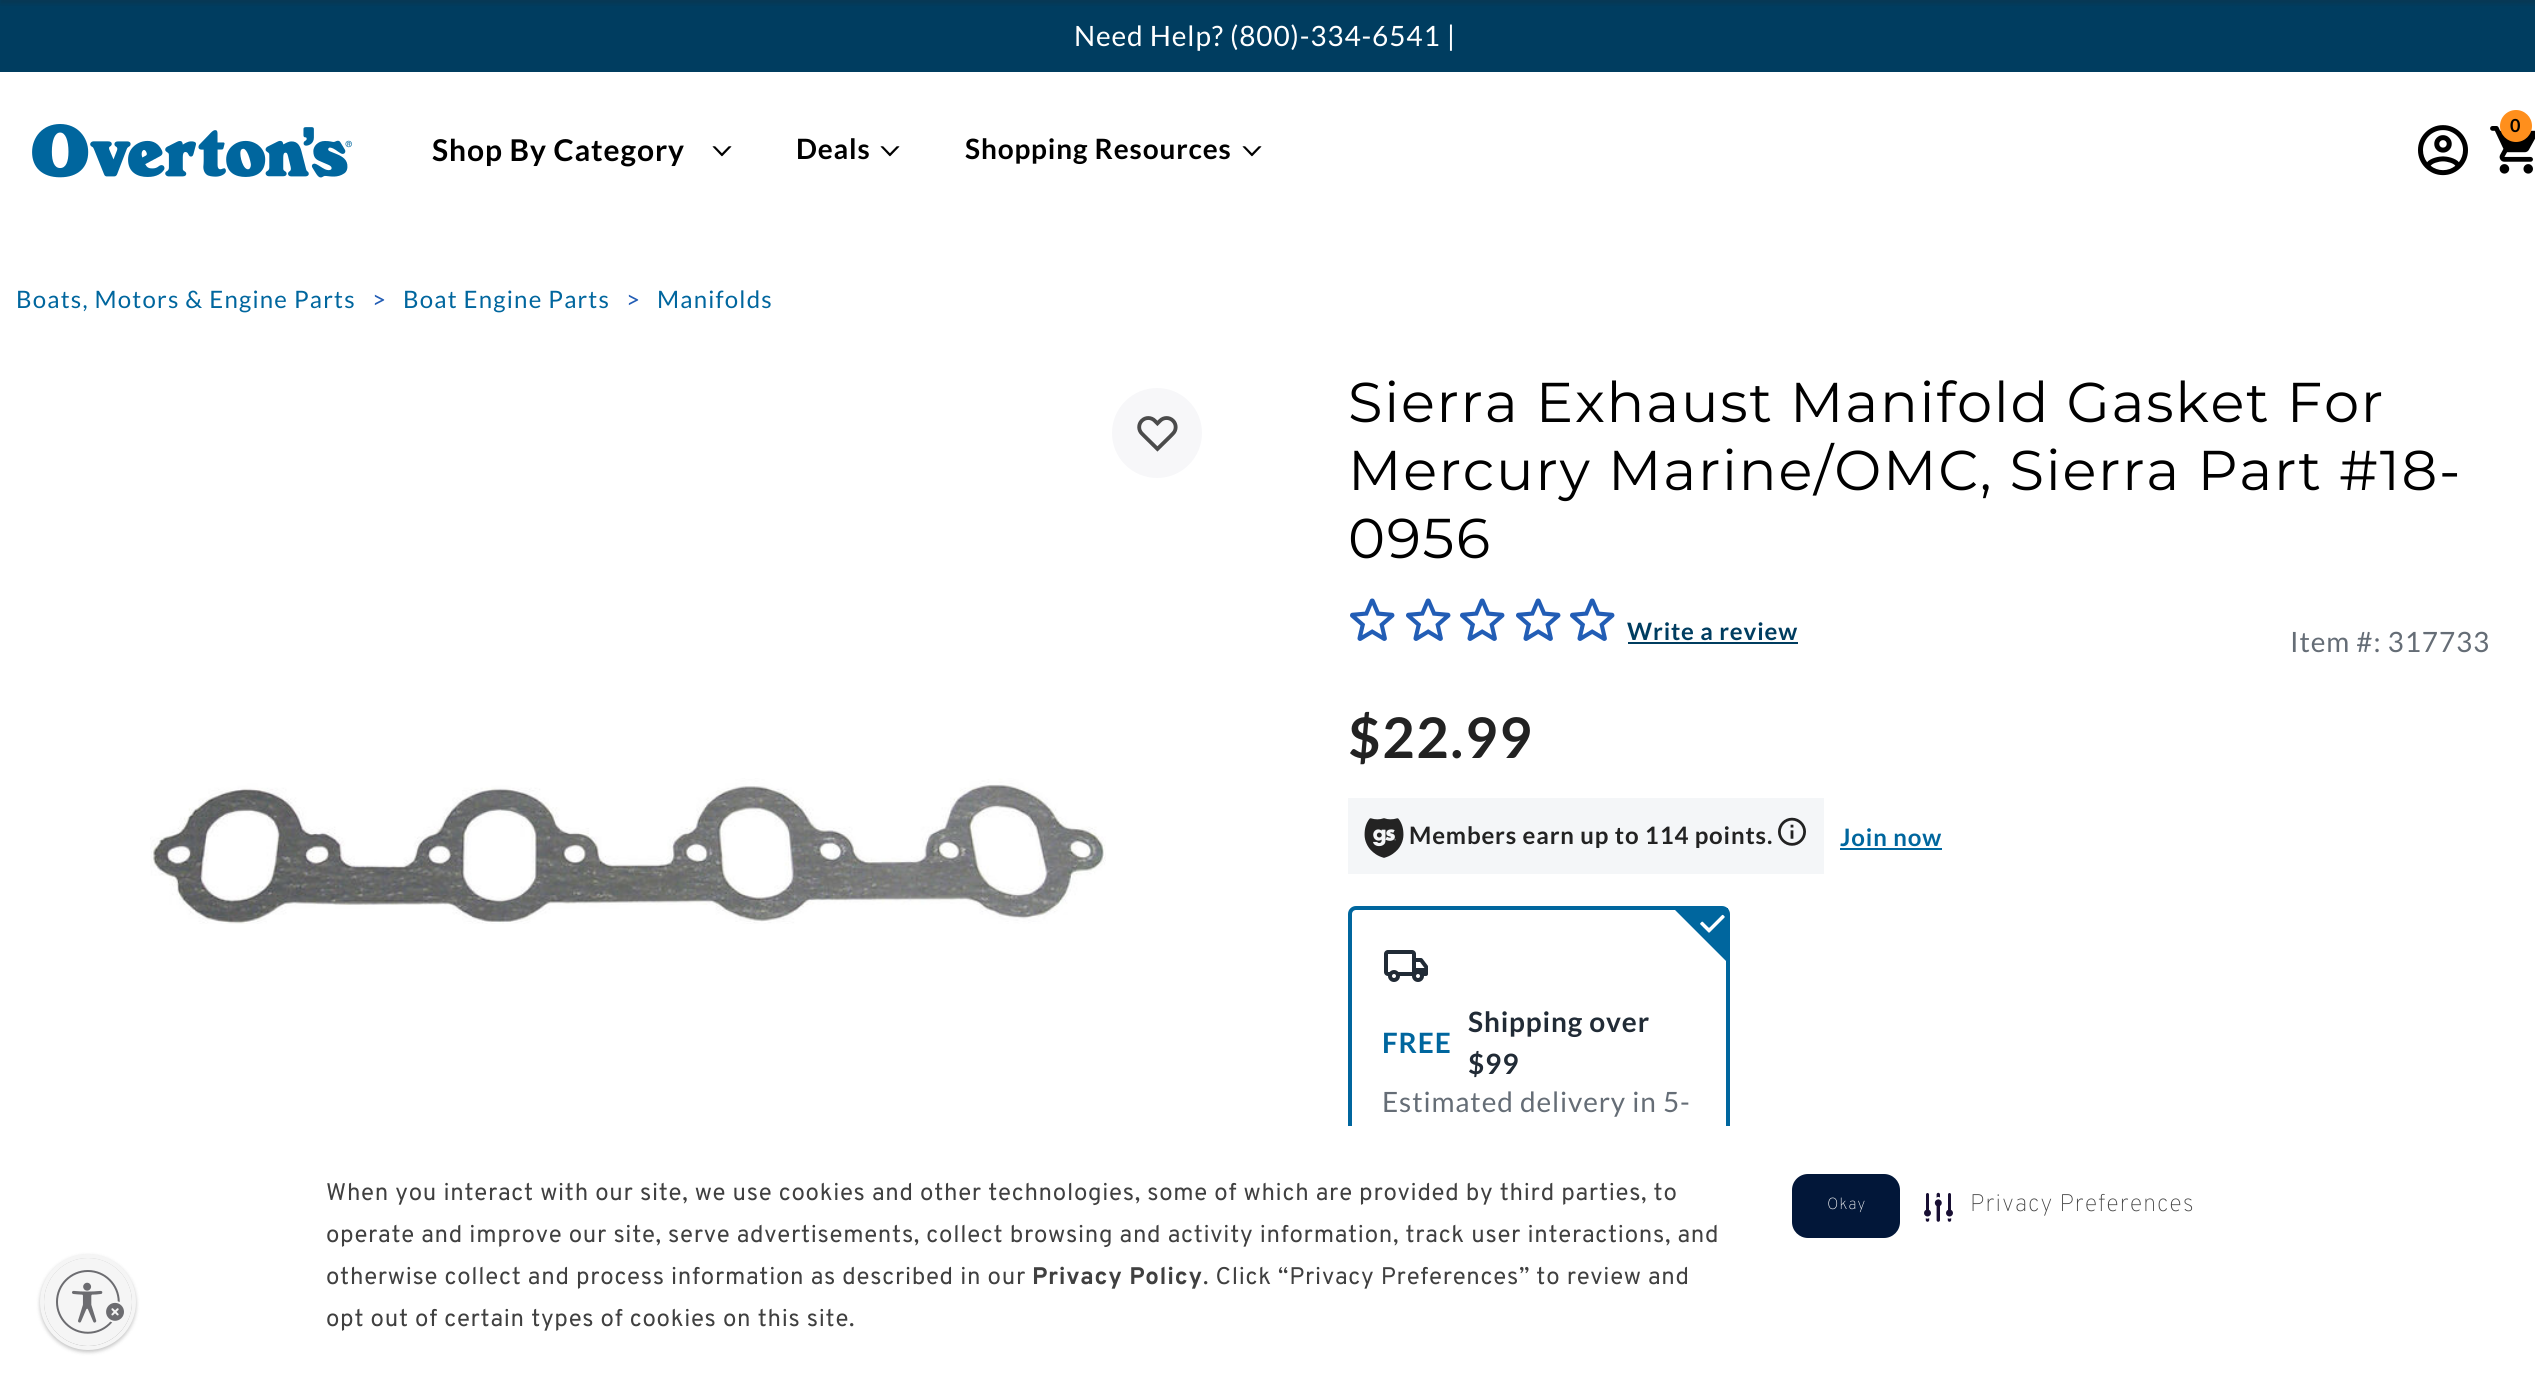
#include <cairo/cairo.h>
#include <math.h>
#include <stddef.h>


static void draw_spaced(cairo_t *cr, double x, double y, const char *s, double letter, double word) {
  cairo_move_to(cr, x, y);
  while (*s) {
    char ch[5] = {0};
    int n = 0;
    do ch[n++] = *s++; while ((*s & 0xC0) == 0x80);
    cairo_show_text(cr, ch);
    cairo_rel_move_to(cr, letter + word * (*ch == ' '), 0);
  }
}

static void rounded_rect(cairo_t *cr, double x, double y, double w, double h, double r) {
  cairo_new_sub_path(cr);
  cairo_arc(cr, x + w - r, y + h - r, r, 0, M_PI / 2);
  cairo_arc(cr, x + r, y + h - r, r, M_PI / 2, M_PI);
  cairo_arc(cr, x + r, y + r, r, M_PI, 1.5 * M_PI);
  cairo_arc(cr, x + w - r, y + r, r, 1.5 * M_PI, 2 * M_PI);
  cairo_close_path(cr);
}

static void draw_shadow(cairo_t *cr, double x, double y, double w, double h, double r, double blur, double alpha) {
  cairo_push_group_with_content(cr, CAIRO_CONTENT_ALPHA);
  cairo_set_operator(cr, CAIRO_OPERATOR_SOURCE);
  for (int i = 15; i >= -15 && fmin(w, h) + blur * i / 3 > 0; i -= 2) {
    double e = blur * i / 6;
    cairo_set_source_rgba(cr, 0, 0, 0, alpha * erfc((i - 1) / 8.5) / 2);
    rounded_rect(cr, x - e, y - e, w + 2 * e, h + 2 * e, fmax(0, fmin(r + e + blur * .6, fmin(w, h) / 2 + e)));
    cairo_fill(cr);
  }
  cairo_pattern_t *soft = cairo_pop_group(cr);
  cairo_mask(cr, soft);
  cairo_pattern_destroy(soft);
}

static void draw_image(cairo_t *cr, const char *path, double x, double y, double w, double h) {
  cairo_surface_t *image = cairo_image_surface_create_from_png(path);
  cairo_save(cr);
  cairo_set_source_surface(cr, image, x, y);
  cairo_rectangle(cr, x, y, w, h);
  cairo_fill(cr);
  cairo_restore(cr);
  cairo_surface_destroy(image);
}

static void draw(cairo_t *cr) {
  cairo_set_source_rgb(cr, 1, 1, 1);
  cairo_paint(cr);
  cairo_set_source_rgb(cr, 0, 61 / 255.0, 96 / 255.0);
  cairo_rectangle(cr, 0, 0, 2535, 72);
  cairo_fill(cr);
  draw_image(cr, "images/1.png", 2418, 125, 50, 51);
  draw_image(cr, "images/2.png", 2490, 126, 45, 48);
  cairo_set_source_rgb(cr, 1, 143 / 255.0, 28 / 255.0);
  cairo_arc(cr, 2516, 126, 16, 0, 2 * M_PI);
  cairo_fill(cr);
  draw_image(cr, "images/3.png", 32, 124, 320, 54);
  draw_image(cr, "images/4.png", 712, 146, 20, 11);
  draw_image(cr, "images/4.png", 880, 146, 20, 11);
  draw_image(cr, "images/4.png", 1242, 146, 20, 11);
  cairo_set_source_rgb(cr, 247 / 255.0, 247 / 255.0, 249 / 255.0);
  cairo_arc(cr, 1157, 433, 45, 0, 2 * M_PI);
  cairo_fill(cr);
  draw_image(cr, "images/5.png", 1137, 416, 41, 36);
  draw_image(cr, "images/6.png", 150, 778, 956, 146);
  draw_image(cr, "images/7.png", 1350, 598, 45, 43);
  draw_image(cr, "images/7.png", 1406, 598, 45, 43);
  draw_image(cr, "images/7.png", 1460, 598, 45, 43);
  draw_image(cr, "images/7.png", 1516, 598, 45, 43);
  draw_image(cr, "images/7.png", 1570, 598, 45, 43);
  cairo_set_source_rgb(cr, 0, 61 / 255.0, 96 / 255.0);
  cairo_rectangle(cr, 1628, 642, 170, 2);
  cairo_fill(cr);
  cairo_set_source_rgb(cr, 244 / 255.0, 246 / 255.0, 248 / 255.0);
  cairo_rectangle(cr, 1348, 798, 476, 76);
  cairo_fill(cr);
  draw_image(cr, "images/8.png", 1364, 818, 40, 40);
  draw_image(cr, "images/9.png", 1778, 817, 28, 29);
  cairo_set_source_rgb(cr, 0, 102 / 255.0, 158 / 255.0);
  cairo_rectangle(cr, 1840, 848, 102, 2);
  cairo_fill(cr);
  cairo_set_source_rgb(cr, 34 / 255.0, 34 / 255.0, 34 / 255.0);
  draw_shadow(cr, 0, -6, 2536, 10, 0, 2, 0.2);
  rounded_rect(cr, 1350, 908, 378, 276, 6);
  cairo_set_source_rgb(cr, 0, 102 / 255.0, 158 / 255.0);
  cairo_set_line_width(cr, 4);
  cairo_stroke(cr);
  draw_image(cr, "images/10.png", 1384, 950, 44, 32);
  cairo_new_path(cr);
  cairo_move_to(cr, 1673, 908);
  cairo_line_to(cr, 1728, 963);
  cairo_line_to(cr, 1728, 908);
  cairo_close_path(cr);
  cairo_fill(cr);
  draw_image(cr, "images/11.png", 1700, 914, 25, 19);
  cairo_set_source_rgb(cr, 0, 0, 0);
  draw_shadow(cr, 40, 1256, 96, 96, 48, 2, 0.24);
  cairo_arc(cr, 88, 1302, 46, 0, 2 * M_PI);
  cairo_set_source_rgb(cr, 245 / 255.0, 245 / 255.0, 245 / 255.0);
  cairo_stroke(cr);
  cairo_save(cr);
  rounded_rect(cr, 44, 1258, 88, 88, 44);
  cairo_clip(cr);
  cairo_set_source_rgb(cr, 0, 0, 0);
  draw_shadow(cr, 44, 1260, 88, 88, 44, 2, 0.24);
  cairo_restore(cr);
  cairo_arc(cr, 88, 1302, 44, 0, 2 * M_PI);
  cairo_fill(cr);
  draw_image(cr, "images/12.png", 56, 1270, 68, 64);
  cairo_set_source_rgb(cr, 1, 1, 1);
  cairo_rectangle(cr, 1348, 1126, 382, 60);
  cairo_fill(cr);
  cairo_set_source_rgb(cr, 2 / 255.0, 23 / 255.0, 57 / 255.0);
  rounded_rect(cr, 1792, 1174, 108, 64, 16);
  cairo_fill(cr);
  draw_image(cr, "images/13.png", 1924, 1192, 29, 30);
  cairo_select_font_face(cr, "Lato", CAIRO_FONT_SLANT_NORMAL, CAIRO_FONT_WEIGHT_NORMAL);
  cairo_set_font_size(cr, 28);
  cairo_set_source_rgb(cr, 1, 1, 1);
  draw_spaced(cr, 1074, 46, "Need Help? (800)-334-6541 |", 0.85, 0);
  cairo_select_font_face(cr, "Lato", CAIRO_FONT_SLANT_NORMAL, CAIRO_FONT_WEIGHT_BOLD);
  cairo_set_font_size(cr, 18);
  cairo_set_source_rgb(cr, 0, 0, 0);
  draw_spaced(cr, 2510, 132, "0", 0.85, 0);
  cairo_set_font_size(cr, 30);
  draw_spaced(cr, 432, 161, "Shop By Category", 0.9, 0);
  cairo_set_font_size(cr, 28);
  draw_spaced(cr, 796, 159, "Deals", 0.85, 0);
  draw_spaced(cr, 965, 159, "Shopping Resources", 0.85, 0);
  cairo_select_font_face(cr, "Lato", CAIRO_FONT_SLANT_NORMAL, CAIRO_FONT_WEIGHT_NORMAL);
  cairo_set_font_size(cr, 24);
  cairo_set_source_rgb(cr, 0, 102 / 255.0, 158 / 255.0);
  draw_spaced(cr, 16, 308, "Boats, Motors & Engine Parts", 1.2, 0);
  cairo_set_source_rgb(cr, 34 / 255.0, 93 / 255.0, 181 / 255.0);
  draw_spaced(cr, 372, 308, ">", 1.2, 0);
  cairo_set_source_rgb(cr, 0, 102 / 255.0, 158 / 255.0);
  draw_spaced(cr, 403, 308, "Boat Engine Parts", 1.2, 0);
  cairo_set_source_rgb(cr, 34 / 255.0, 93 / 255.0, 181 / 255.0);
  draw_spaced(cr, 626, 308, ">", 1.2, 0);
  cairo_set_source_rgb(cr, 0, 102 / 255.0, 158 / 255.0);
  draw_spaced(cr, 657, 308, "Manifolds", 1.2, 0);
  cairo_select_font_face(cr, "Montserrat", CAIRO_FONT_SLANT_NORMAL, CAIRO_FONT_WEIGHT_NORMAL);
  cairo_set_font_size(cr, 56);
  cairo_set_source_rgb(cr, 0, 0, 0);
  draw_spaced(cr, 1348, 422, "Sierra Exhaust Manifold Gasket For", 1.7, 0);
  draw_spaced(cr, 1348, 490, "Mercury Marine/OMC, Sierra Part #18-", 1.7, 0);
  draw_spaced(cr, 1348, 558, "0956", 1.7, 0);
  cairo_select_font_face(cr, "Lato", CAIRO_FONT_SLANT_NORMAL, CAIRO_FONT_WEIGHT_BOLD);
  cairo_set_font_size(cr, 24);
  cairo_set_source_rgb(cr, 0, 61 / 255.0, 96 / 255.0);
  draw_spaced(cr, 1627, 640, "Write a review", 0.85, 0);
  cairo_select_font_face(cr, "Lato", CAIRO_FONT_SLANT_NORMAL, CAIRO_FONT_WEIGHT_NORMAL);
  cairo_set_font_size(cr, 28);
  cairo_set_source_rgb(cr, 101 / 255.0, 109 / 255.0, 118 / 255.0);
  draw_spaced(cr, 2290, 652, "Item #: 317733", 0.85, 0);
  cairo_select_font_face(cr, "Lato", CAIRO_FONT_SLANT_NORMAL, CAIRO_FONT_WEIGHT_BOLD);
  cairo_set_font_size(cr, 56);
  cairo_set_source_rgb(cr, 34 / 255.0, 34 / 255.0, 34 / 255.0);
  draw_spaced(cr, 1348, 758, "$22.99", 1.7, 0);
  cairo_set_font_size(cr, 24);
  draw_spaced(cr, 1409, 844, "Members earn up to 114 points.", 0.85, 0);
  cairo_set_source_rgb(cr, 0, 102 / 255.0, 158 / 255.0);
  draw_spaced(cr, 1840, 846, "Join now", 0.85, 0);
  cairo_set_font_size(cr, 28);
  cairo_set_source_rgb(cr, 33 / 255.0, 43 / 255.0, 54 / 255.0);
  draw_spaced(cr, 1468, 1032, "Shipping over", 0.85, 0);
  cairo_set_source_rgb(cr, 0, 102 / 255.0, 158 / 255.0);
  draw_spaced(cr, 1382, 1053, "FREE", 0.85, 0);
  cairo_set_source_rgb(cr, 33 / 255.0, 43 / 255.0, 54 / 255.0);
  draw_spaced(cr, 1468, 1074, "$99", 0.85, 0);
  cairo_select_font_face(cr, "Lato", CAIRO_FONT_SLANT_NORMAL, CAIRO_FONT_WEIGHT_NORMAL);
  cairo_set_source_rgb(cr, 101 / 255.0, 109 / 255.0, 118 / 255.0);
  draw_spaced(cr, 1382, 1112, "Estimated delivery in 5-", 0.85, 0);
  cairo_select_font_face(cr, "Overpass", CAIRO_FONT_SLANT_NORMAL, CAIRO_FONT_WEIGHT_NORMAL);
  cairo_set_font_size(cr, 24);
  cairo_set_source_rgb(cr, 64 / 255.0, 64 / 255.0, 64 / 255.0);
  draw_spaced(cr, 326, 1200, "When you interact with our site, we use cookies and other technologies, some of which are provided by third parties, to", 0.72, 0);
  draw_spaced(cr, 326, 1242, "operate and improve our site, serve advertisements, collect browsing and activity information, track user interactions, and", 0.72, 0);
  draw_spaced(cr, 326, 1284, "otherwise collect and process information as described in our", 0.72, 0);
  cairo_select_font_face(cr, "Overpass", CAIRO_FONT_SLANT_NORMAL, CAIRO_FONT_WEIGHT_BOLD);
  draw_spaced(cr, 1032, 1284, "Privacy Policy", 0.72, 0);
  cairo_select_font_face(cr, "Overpass", CAIRO_FONT_SLANT_NORMAL, CAIRO_FONT_WEIGHT_NORMAL);
  draw_spaced(cr, 1203, 1284, ". Click “Privacy Preferences” to review and", 0.72, 0);
  draw_spaced(cr, 326, 1326, "opt out of certain types of cookies on this site.", 0.72, 0);
  cairo_select_font_face(cr, "Overpass Thin", CAIRO_FONT_SLANT_NORMAL, CAIRO_FONT_WEIGHT_NORMAL);
  cairo_set_font_size(cr, 16);
  cairo_set_source_rgb(cr, 1, 1, 1);
  draw_spaced(cr, 1827, 1209, "Okay", 0.85, 0);
  cairo_set_font_size(cr, 24);
  cairo_set_source_rgb(cr, 64 / 255.0, 64 / 255.0, 64 / 255.0);
  draw_spaced(cr, 1970, 1211, "Privacy Preferences", 0.85, 0);
}

int main(void) {
  cairo_surface_t *surface = cairo_image_surface_create(CAIRO_FORMAT_RGB24, 2535, 1389);
  cairo_t *cr = cairo_create(surface);
  cairo_font_options_t *options = cairo_font_options_create();
  cairo_font_options_set_hint_metrics(options, CAIRO_HINT_METRICS_OFF);
  cairo_font_options_set_hint_style(options, CAIRO_HINT_STYLE_NONE);
  cairo_set_font_options(cr, options);
  cairo_set_miter_limit(cr, 4);
  draw(cr);
  cairo_surface_write_to_png(surface, "out.png");
  cairo_font_options_destroy(options);
  cairo_destroy(cr);
  cairo_surface_destroy(surface);
  return 0;
}
